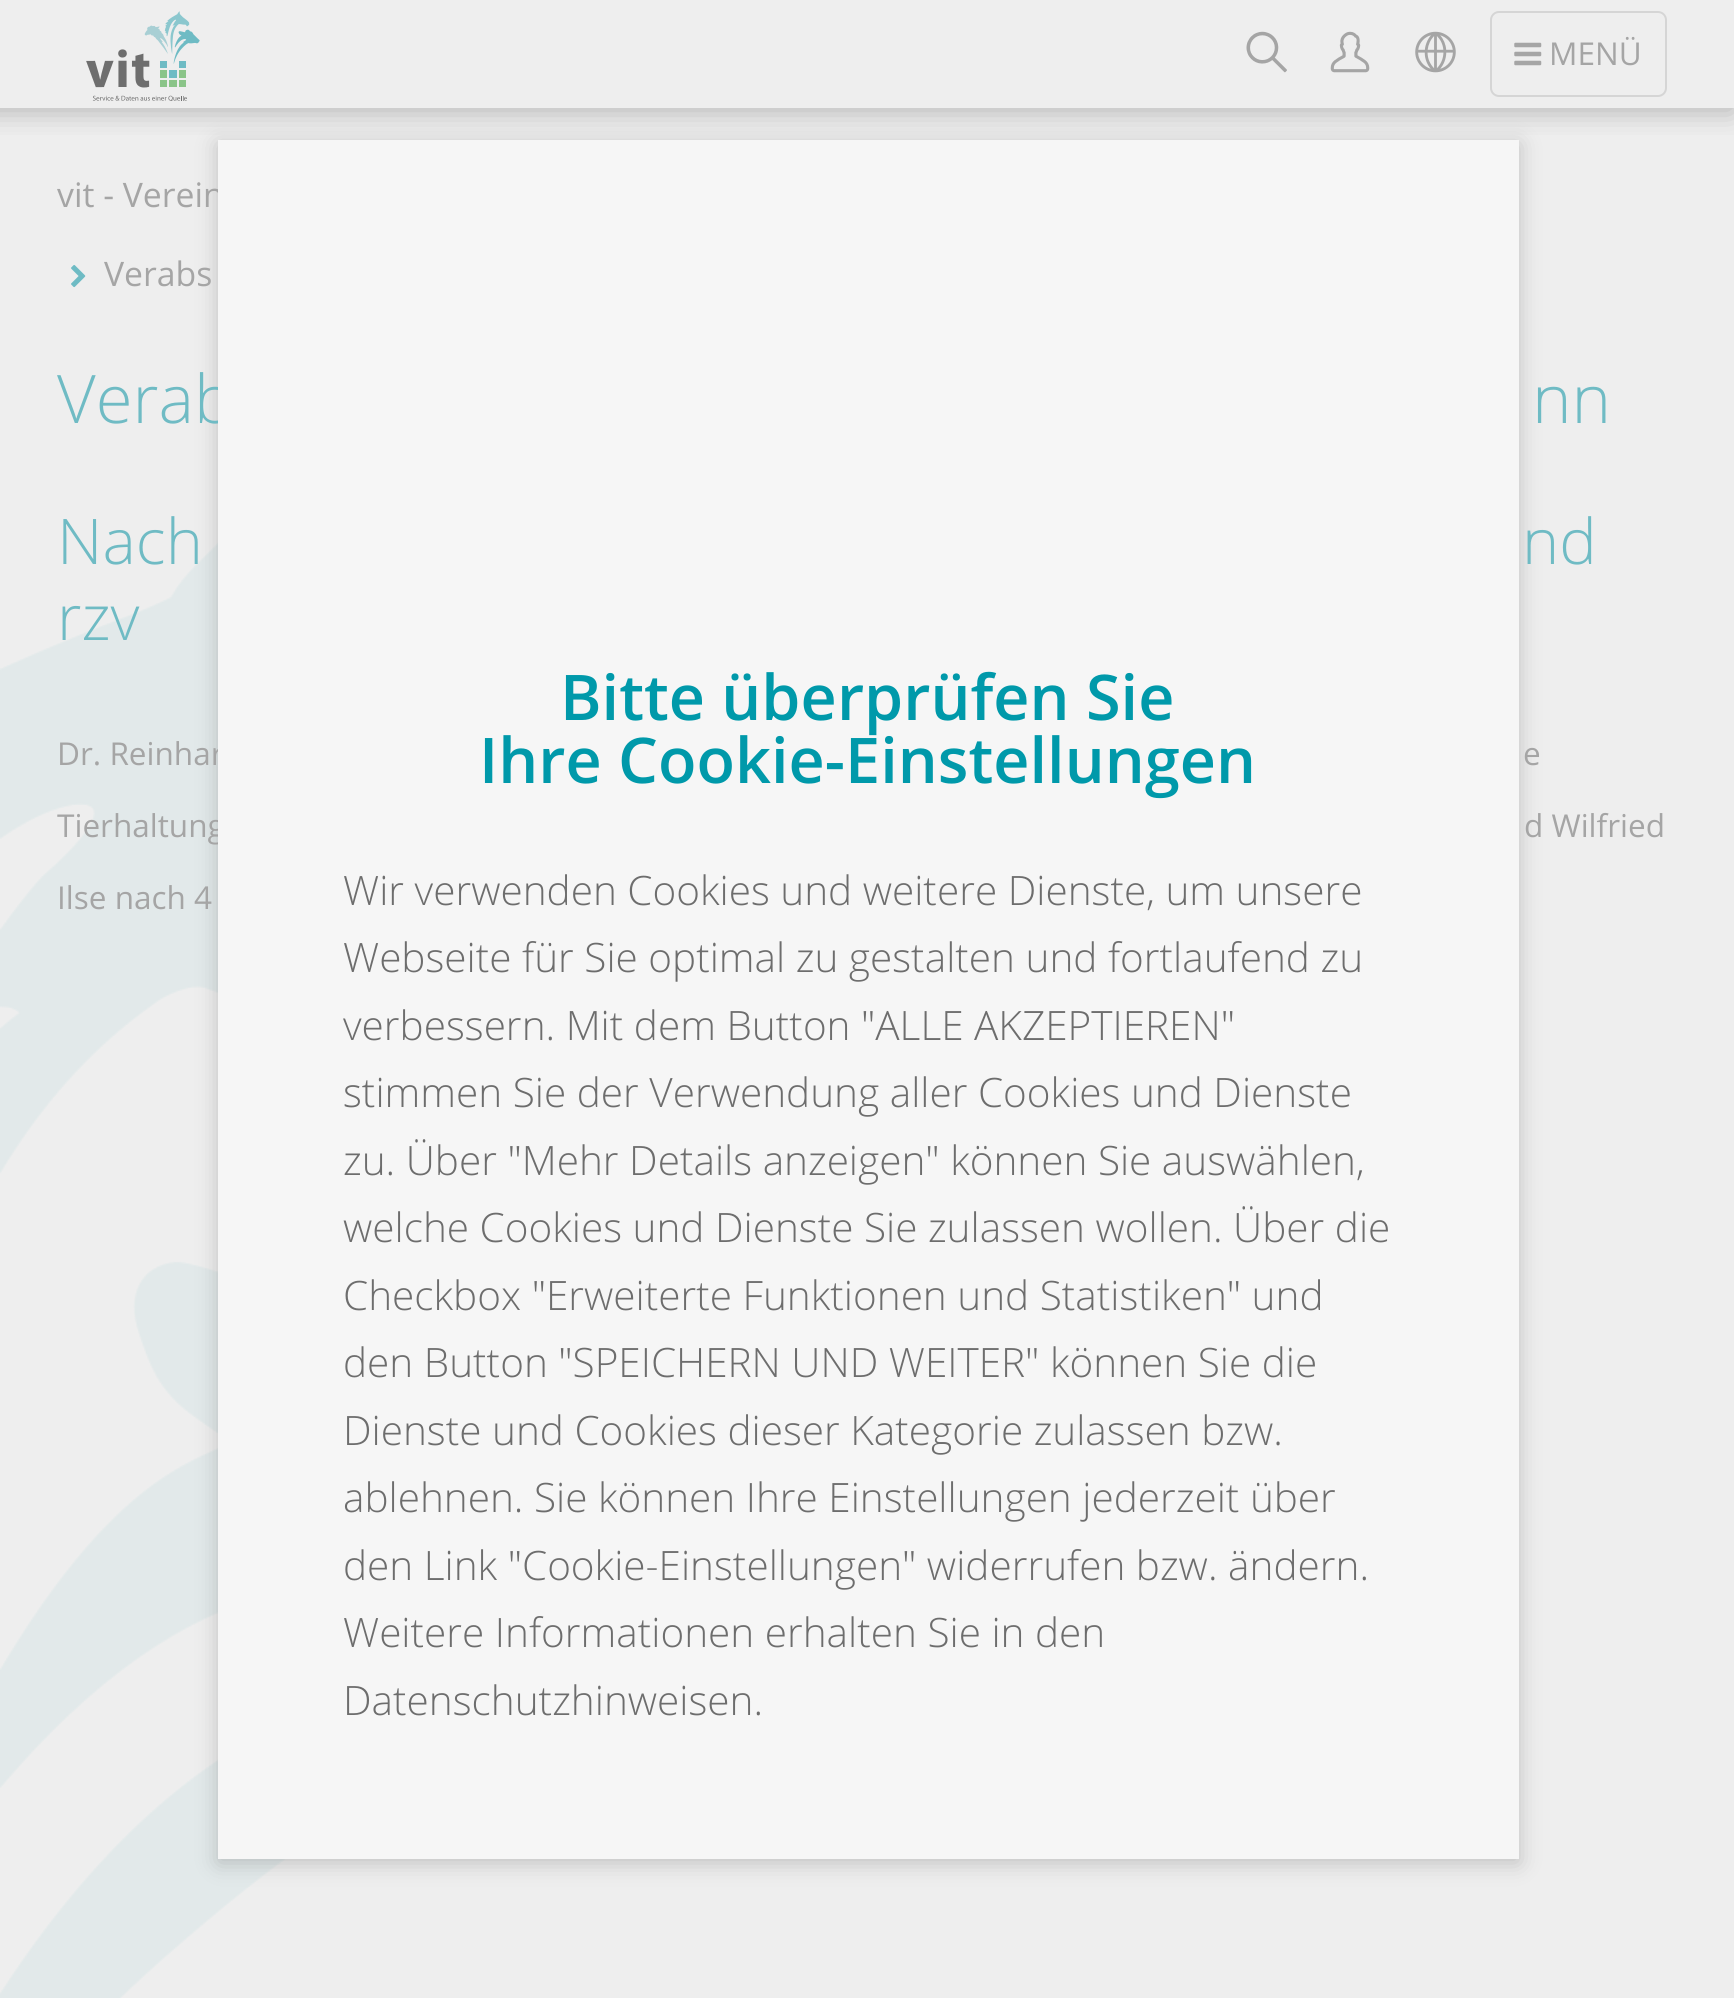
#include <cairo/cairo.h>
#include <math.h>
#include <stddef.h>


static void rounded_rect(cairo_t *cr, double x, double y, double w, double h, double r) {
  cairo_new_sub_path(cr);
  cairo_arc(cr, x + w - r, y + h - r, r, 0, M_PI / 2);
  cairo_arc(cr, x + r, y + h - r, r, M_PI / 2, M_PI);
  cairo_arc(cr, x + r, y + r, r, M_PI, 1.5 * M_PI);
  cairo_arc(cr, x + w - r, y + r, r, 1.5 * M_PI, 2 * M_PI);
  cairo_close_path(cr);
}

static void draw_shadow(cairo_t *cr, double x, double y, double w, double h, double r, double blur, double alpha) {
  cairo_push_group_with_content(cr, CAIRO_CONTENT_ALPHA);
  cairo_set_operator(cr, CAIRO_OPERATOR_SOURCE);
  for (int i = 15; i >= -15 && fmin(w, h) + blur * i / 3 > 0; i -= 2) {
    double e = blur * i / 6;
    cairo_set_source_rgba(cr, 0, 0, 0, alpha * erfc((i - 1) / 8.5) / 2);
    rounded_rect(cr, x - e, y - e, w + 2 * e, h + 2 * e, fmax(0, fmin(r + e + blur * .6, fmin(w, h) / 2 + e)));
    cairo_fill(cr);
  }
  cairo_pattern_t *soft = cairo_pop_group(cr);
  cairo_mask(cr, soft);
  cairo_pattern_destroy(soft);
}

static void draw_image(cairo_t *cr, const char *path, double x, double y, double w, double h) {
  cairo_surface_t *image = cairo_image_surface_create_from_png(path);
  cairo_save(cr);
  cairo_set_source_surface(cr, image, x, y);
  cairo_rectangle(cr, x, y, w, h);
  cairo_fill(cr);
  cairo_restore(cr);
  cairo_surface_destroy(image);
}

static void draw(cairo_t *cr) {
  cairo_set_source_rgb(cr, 238 / 255.0, 238 / 255.0, 238 / 255.0);
  cairo_paint(cr);
  cairo_save(cr);
  cairo_rectangle(cr, 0, 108, 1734, 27);
  cairo_clip(cr);
  cairo_set_source_rgb(cr, 111 / 255.0, 111 / 255.0, 111 / 255.0);
  draw_shadow(cr, -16, -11, 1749, 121, 0, 14.5, 0.5);
  cairo_restore(cr);
  draw_image(cr, "images/1.png", 86, 11, 114, 90);
  draw_image(cr, "images/2.png", 1246, 31, 41, 42);
  draw_image(cr, "images/3.png", 1330, 31, 40, 42);
  draw_image(cr, "images/4.png", 1415, 31, 41, 42);
  rounded_rect(cr, 1491, 12, 175, 84, 8);
  cairo_set_source_rgb(cr, 213 / 255.0, 213 / 255.0, 213 / 255.0);
  cairo_stroke(cr);
  draw_image(cr, "images/5.png", 1514, 42, 28, 24);
  draw_image(cr, "images/6.png", 0, 504, 903, 1494);
  draw_image(cr, "images/7.png", 71, 264, 15, 24);
  cairo_set_source_rgb(cr, 0, 0, 0);
  draw_shadow(cr, 218, 144, 1301, 1719, 0, 11, 0.2);
  cairo_select_font_face(cr, "Open Sans", CAIRO_FONT_SLANT_NORMAL, CAIRO_FONT_WEIGHT_NORMAL);
  cairo_set_font_size(cr, 31.5);
  cairo_set_source_rgb(cr, 165 / 255.0, 165 / 255.0, 165 / 255.0);
  cairo_move_to(cr, 1549, 65);
  cairo_show_text(cr, "MENÜ");
  cairo_set_font_size(cr, 33.75);
  cairo_move_to(cr, 57, 207);
  cairo_show_text(cr, "vit - Verein");
  cairo_move_to(cr, 104, 286);
  cairo_show_text(cr, "Verabs");
  cairo_select_font_face(cr, "Open Sans Light", CAIRO_FONT_SLANT_NORMAL, CAIRO_FONT_WEIGHT_NORMAL);
  cairo_set_font_size(cr, 67);
  cairo_set_source_rgb(cr, 111 / 255.0, 187 / 255.0, 196 / 255.0);
  cairo_move_to(cr, 57, 423);
  cairo_show_text(cr, "Verab");
  cairo_move_to(cr, 1532, 423);
  cairo_show_text(cr, "nn");
  cairo_set_font_size(cr, 63);
  cairo_move_to(cr, 57, 564);
  cairo_show_text(cr, "Nach");
  cairo_move_to(cr, 1522, 564);
  cairo_show_text(cr, "nd");
  cairo_move_to(cr, 57, 640);
  cairo_show_text(cr, "rzv");
  cairo_select_font_face(cr, "Open Sans", CAIRO_FONT_SLANT_NORMAL, CAIRO_FONT_WEIGHT_NORMAL);
  cairo_set_font_size(cr, 31.5);
  cairo_set_source_rgb(cr, 165 / 255.0, 165 / 255.0, 165 / 255.0);
  cairo_move_to(cr, 57, 765);
  cairo_show_text(cr, "Dr. Reinhar");
  cairo_move_to(cr, 1523, 765);
  cairo_show_text(cr, "e");
  cairo_move_to(cr, 57, 837);
  cairo_show_text(cr, "Tierhaltung");
  cairo_move_to(cr, 1524, 837);
  cairo_show_text(cr, "d Wilfried");
  cairo_move_to(cr, 57, 909);
  cairo_show_text(cr, "Ilse nach 4");
  cairo_set_source_rgb(cr, 246 / 255.0, 246 / 255.0, 246 / 255.0);
  cairo_rectangle(cr, 218, 140, 1301, 1719);
  cairo_fill(cr);
  cairo_select_font_face(cr, "Open Sans SemiBold", CAIRO_FONT_SLANT_NORMAL, CAIRO_FONT_WEIGHT_NORMAL);
  cairo_set_font_size(cr, 63);
  cairo_set_source_rgb(cr, 0, 153 / 255.0, 170 / 255.0);
  cairo_move_to(cr, 560, 720);
  cairo_show_text(cr, "Bitte überprüfen Sie");
  cairo_move_to(cr, 479, 783);
  cairo_show_text(cr, "Ihre Cookie-Einstellungen");
  cairo_select_font_face(cr, "Open Sans Light", CAIRO_FONT_SLANT_NORMAL, CAIRO_FONT_WEIGHT_NORMAL);
  cairo_set_font_size(cr, 40.5);
  cairo_set_source_rgb(cr, 109 / 255.0, 109 / 255.0, 109 / 255.0);
  cairo_move_to(cr, 343, 905);
  cairo_show_text(cr, "Wir verwenden Cookies und weitere Dienste, um unsere");
  cairo_move_to(cr, 343, 972);
  cairo_show_text(cr, "Webseite für Sie optimal zu gestalten und fortlaufend zu");
  cairo_move_to(cr, 343, 1040);
  cairo_show_text(cr, "verbessern. Mit dem Button \"ALLE AKZEPTIEREN\"");
  cairo_move_to(cr, 343, 1107);
  cairo_show_text(cr, "stimmen Sie der Verwendung aller Cookies und Dienste");
  cairo_move_to(cr, 343, 1175);
  cairo_show_text(cr, "zu. Über \"Mehr Details anzeigen\" können Sie auswählen,");
  cairo_move_to(cr, 343, 1242);
  cairo_show_text(cr, "welche Cookies und Dienste Sie zulassen wollen. Über die");
  cairo_move_to(cr, 343, 1310);
  cairo_show_text(cr, "Checkbox \"Erweiterte Funktionen und Statistiken\" und");
  cairo_move_to(cr, 343, 1377);
  cairo_show_text(cr, "den Button \"SPEICHERN UND WEITER\" können Sie die");
  cairo_move_to(cr, 343, 1445);
  cairo_show_text(cr, "Dienste und Cookies dieser Kategorie zulassen bzw.");
  cairo_move_to(cr, 343, 1512);
  cairo_show_text(cr, "ablehnen. Sie können Ihre Einstellungen jederzeit über");
  cairo_move_to(cr, 343, 1580);
  cairo_show_text(cr, "den Link \"Cookie-Einstellungen\" widerrufen bzw. ändern.");
  cairo_move_to(cr, 343, 1647);
  cairo_show_text(cr, "Weitere Informationen erhalten Sie in den");
  cairo_move_to(cr, 343, 1715);
  cairo_show_text(cr, "Datenschutzhinweisen.");
}

int main(void) {
  cairo_surface_t *surface = cairo_image_surface_create(CAIRO_FORMAT_RGB24, 1734, 1998);
  cairo_t *cr = cairo_create(surface);
  cairo_font_options_t *options = cairo_font_options_create();
  cairo_font_options_set_hint_metrics(options, CAIRO_HINT_METRICS_OFF);
  cairo_font_options_set_hint_style(options, CAIRO_HINT_STYLE_NONE);
  cairo_set_font_options(cr, options);
  cairo_set_miter_limit(cr, 4);
  draw(cr);
  cairo_surface_write_to_png(surface, "out.png");
  cairo_font_options_destroy(options);
  cairo_destroy(cr);
  cairo_surface_destroy(surface);
  return 0;
}
